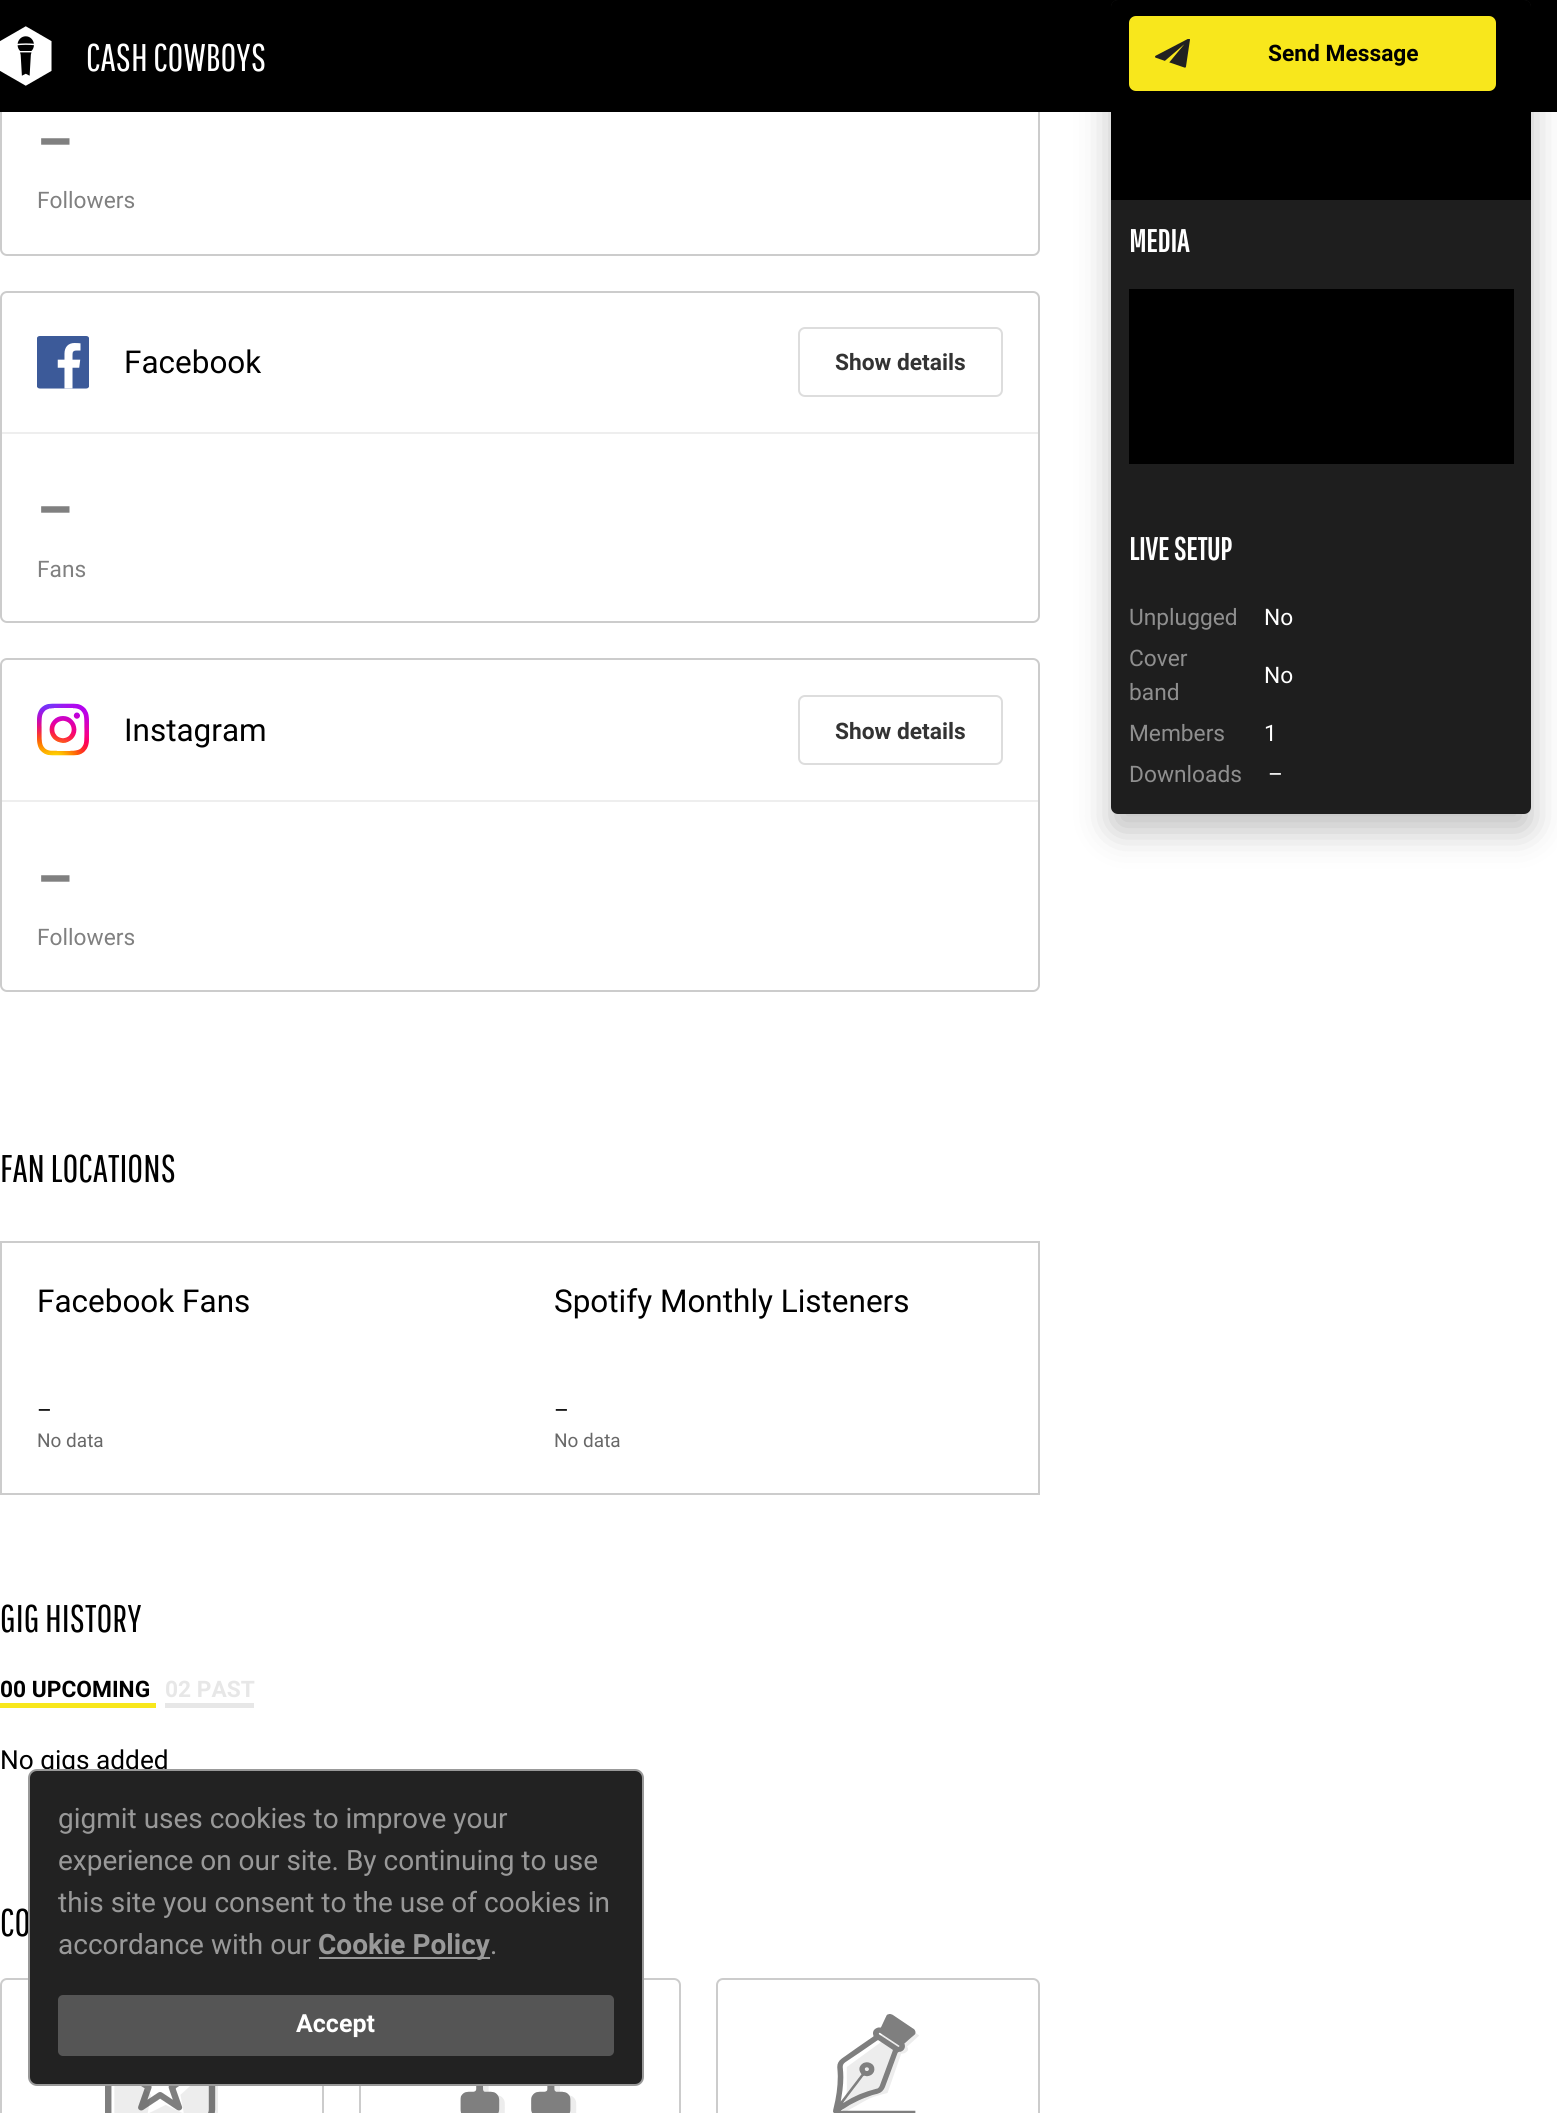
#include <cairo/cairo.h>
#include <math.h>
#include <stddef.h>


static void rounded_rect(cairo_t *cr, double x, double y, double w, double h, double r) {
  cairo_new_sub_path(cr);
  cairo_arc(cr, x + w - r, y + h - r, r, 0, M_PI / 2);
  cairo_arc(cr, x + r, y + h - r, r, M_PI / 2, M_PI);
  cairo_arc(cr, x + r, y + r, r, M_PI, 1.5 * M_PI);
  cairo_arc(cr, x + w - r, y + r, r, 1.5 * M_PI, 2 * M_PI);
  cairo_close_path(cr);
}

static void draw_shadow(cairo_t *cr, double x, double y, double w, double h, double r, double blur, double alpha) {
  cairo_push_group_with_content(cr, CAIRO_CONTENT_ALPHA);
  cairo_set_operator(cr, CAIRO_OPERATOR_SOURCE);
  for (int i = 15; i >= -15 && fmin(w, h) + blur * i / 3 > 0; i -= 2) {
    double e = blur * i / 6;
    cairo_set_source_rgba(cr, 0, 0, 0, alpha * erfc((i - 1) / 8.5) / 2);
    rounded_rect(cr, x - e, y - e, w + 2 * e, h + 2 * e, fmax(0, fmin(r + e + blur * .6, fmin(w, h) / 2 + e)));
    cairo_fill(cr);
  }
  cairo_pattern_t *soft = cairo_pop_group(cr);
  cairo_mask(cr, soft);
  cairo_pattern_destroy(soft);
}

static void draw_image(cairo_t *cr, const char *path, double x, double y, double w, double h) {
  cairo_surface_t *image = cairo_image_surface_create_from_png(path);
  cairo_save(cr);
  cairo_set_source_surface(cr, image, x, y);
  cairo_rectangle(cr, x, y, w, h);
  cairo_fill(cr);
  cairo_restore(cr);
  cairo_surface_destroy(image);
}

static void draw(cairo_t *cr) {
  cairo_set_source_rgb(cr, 1, 1, 1);
  cairo_paint(cr);
  rounded_rect(cr, 1, -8, 1038, 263, 6);
  cairo_set_source_rgb(cr, 204 / 255.0, 204 / 255.0, 204 / 255.0);
  cairo_stroke(cr);
  cairo_set_source_rgb(cr, 0, 0, 0);
  cairo_rectangle(cr, 0, 0, 1557, 112);
  cairo_fill(cr);
  draw_image(cr, "images/1.png", 0, 26, 52, 60);
  cairo_set_source_rgb(cr, 0, 0, 0);
  draw_shadow(cr, 1111, 18, 420, 813, 7, 17.5, 0.25);
  cairo_set_source_rgb(cr, 30 / 255.0, 30 / 255.0, 30 / 255.0);
  rounded_rect(cr, 1111, 0, 420, 814, 7);
  cairo_fill(cr);
  cairo_set_source_rgb(cr, 0, 0, 0);
  cairo_new_path(cr);
  cairo_move_to(cr, 1118, 0);
  cairo_line_to(cr, 1524, 0);
  cairo_curve_to(cr, 1528, 0, 1531, 3, 1531, 7);
  cairo_line_to(cr, 1531, 200);
  cairo_line_to(cr, 1111, 200);
  cairo_line_to(cr, 1111, 7);
  cairo_curve_to(cr, 1111, 3, 1114, 0, 1118, 0);
  cairo_close_path(cr);
  cairo_fill(cr);
  cairo_set_source_rgb(cr, 248 / 255.0, 231 / 255.0, 28 / 255.0);
  rounded_rect(cr, 1129, 16, 367, 75, 7);
  cairo_fill(cr);
  draw_image(cr, "images/2.png", 1155, 39, 35, 29);
  cairo_set_source_rgb(cr, 0, 0, 0);
  cairo_rectangle(cr, 1129, 289, 385, 175);
  cairo_fill(cr);
  rounded_rect(cr, 1, 292, 1038, 330, 6);
  cairo_set_source_rgb(cr, 204 / 255.0, 204 / 255.0, 204 / 255.0);
  cairo_stroke(cr);
  draw_image(cr, "images/3.png", 37, 336, 52, 53);
  rounded_rect(cr, 799, 328, 203, 68, 6);
  cairo_set_source_rgb(cr, 221 / 255.0, 221 / 255.0, 221 / 255.0);
  cairo_stroke(cr);
  cairo_set_source_rgb(cr, 238 / 255.0, 238 / 255.0, 238 / 255.0);
  cairo_rectangle(cr, 2, 432, 1036, 2);
  cairo_fill(cr);
  rounded_rect(cr, 1, 659, 1038, 332, 6);
  cairo_set_source_rgb(cr, 204 / 255.0, 204 / 255.0, 204 / 255.0);
  cairo_stroke(cr);
  draw_image(cr, "images/4.png", 37, 703, 52, 53);
  rounded_rect(cr, 799, 696, 203, 68, 6);
  cairo_set_source_rgb(cr, 221 / 255.0, 221 / 255.0, 221 / 255.0);
  cairo_stroke(cr);
  cairo_set_source_rgb(cr, 238 / 255.0, 238 / 255.0, 238 / 255.0);
  cairo_rectangle(cr, 2, 800, 1036, 2);
  cairo_fill(cr);
  cairo_set_source_rgb(cr, 204 / 255.0, 204 / 255.0, 204 / 255.0);
  cairo_rectangle(cr, 0, 1241, 1040, 2);
  cairo_fill(cr);
  cairo_rectangle(cr, 1038, 1241, 2, 254);
  cairo_fill(cr);
  cairo_rectangle(cr, 0, 1493, 1040, 2);
  cairo_fill(cr);
  cairo_rectangle(cr, 0, 1241, 2, 254);
  cairo_fill(cr);
  cairo_set_source_rgb(cr, 248 / 255.0, 231 / 255.0, 28 / 255.0);
  cairo_rectangle(cr, 0, 1703, 156, 5);
  cairo_fill(cr);
  cairo_set_source_rgb(cr, 231 / 255.0, 231 / 255.0, 231 / 255.0);
  cairo_rectangle(cr, 165, 1703, 89, 5);
  cairo_fill(cr);
  rounded_rect(cr, 1, 1979, 322, 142, 6);
  cairo_set_source_rgb(cr, 204 / 255.0, 204 / 255.0, 204 / 255.0);
  cairo_stroke(cr);
  draw_image(cr, "images/5.png", 105, 2086, 113, 27);
  rounded_rect(cr, 360, 1979, 320, 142, 6);
  cairo_stroke(cr);
  draw_image(cr, "images/6.png", 460, 2086, 117, 27);
  rounded_rect(cr, 717, 1979, 322, 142, 6);
  cairo_stroke(cr);
  draw_image(cr, "images/7.png", 833, 2014, 86, 99);
  cairo_select_font_face(cr, "Pathway Gothic One", CAIRO_FONT_SLANT_NORMAL, CAIRO_FONT_WEIGHT_NORMAL);
  cairo_set_font_size(cr, 38.5);
  cairo_set_source_rgb(cr, 1, 1, 1);
  cairo_move_to(cr, 86, 71);
  cairo_show_text(cr, "CASH COWBOYS");
  cairo_select_font_face(cr, "Roboto", CAIRO_FONT_SLANT_NORMAL, CAIRO_FONT_WEIGHT_BOLD);
  cairo_set_font_size(cr, 22.75);
  cairo_set_source_rgb(cr, 0, 0, 0);
  cairo_move_to(cr, 1268, 61);
  cairo_show_text(cr, "Send Message");
  cairo_select_font_face(cr, "Pathway Gothic One", CAIRO_FONT_SLANT_NORMAL, CAIRO_FONT_WEIGHT_BOLD);
  cairo_set_font_size(cr, 31.5);
  cairo_set_source_rgb(cr, 1, 1, 1);
  cairo_move_to(cr, 1129, 252);
  cairo_show_text(cr, "MEDIA");
  cairo_move_to(cr, 1129, 560);
  cairo_show_text(cr, "LIVE SETUP");
  cairo_select_font_face(cr, "Roboto", CAIRO_FONT_SLANT_NORMAL, CAIRO_FONT_WEIGHT_NORMAL);
  cairo_set_font_size(cr, 22.75);
  cairo_set_source_rgb(cr, 143 / 255.0, 143 / 255.0, 143 / 255.0);
  cairo_move_to(cr, 1129, 625);
  cairo_show_text(cr, "Unplugged");
  cairo_set_source_rgb(cr, 1, 1, 1);
  cairo_move_to(cr, 1264, 625);
  cairo_show_text(cr, "No");
  cairo_set_source_rgb(cr, 143 / 255.0, 143 / 255.0, 143 / 255.0);
  cairo_move_to(cr, 1129, 666);
  cairo_show_text(cr, "Cover");
  cairo_move_to(cr, 1129, 700);
  cairo_show_text(cr, "band");
  cairo_set_source_rgb(cr, 1, 1, 1);
  cairo_move_to(cr, 1264, 683);
  cairo_show_text(cr, "No");
  cairo_set_source_rgb(cr, 143 / 255.0, 143 / 255.0, 143 / 255.0);
  cairo_move_to(cr, 1129, 741);
  cairo_show_text(cr, "Members");
  cairo_set_source_rgb(cr, 1, 1, 1);
  cairo_move_to(cr, 1264, 741);
  cairo_show_text(cr, "1");
  cairo_set_source_rgb(cr, 143 / 255.0, 143 / 255.0, 143 / 255.0);
  cairo_move_to(cr, 1129, 782);
  cairo_show_text(cr, "Downloads");
  cairo_set_source_rgb(cr, 1, 1, 1);
  cairo_move_to(cr, 1268, 782);
  cairo_show_text(cr, "–");
  cairo_select_font_face(cr, "Roboto", CAIRO_FONT_SLANT_NORMAL, CAIRO_FONT_WEIGHT_BOLD);
  cairo_set_font_size(cr, 56);
  cairo_set_source_rgb(cr, 128 / 255.0, 128 / 255.0, 128 / 255.0);
  cairo_move_to(cr, 37, 161);
  cairo_show_text(cr, "–");
  cairo_select_font_face(cr, "Roboto", CAIRO_FONT_SLANT_NORMAL, CAIRO_FONT_WEIGHT_NORMAL);
  cairo_set_font_size(cr, 22.75);
  cairo_move_to(cr, 37, 208);
  cairo_show_text(cr, "Followers");
  cairo_set_font_size(cr, 31.5);
  cairo_set_source_rgb(cr, 0, 0, 0);
  cairo_move_to(cr, 124, 373);
  cairo_show_text(cr, "Facebook");
  cairo_select_font_face(cr, "Roboto", CAIRO_FONT_SLANT_NORMAL, CAIRO_FONT_WEIGHT_BOLD);
  cairo_set_font_size(cr, 22.75);
  cairo_set_source_rgb(cr, 51 / 255.0, 51 / 255.0, 51 / 255.0);
  cairo_move_to(cr, 835, 370);
  cairo_show_text(cr, "Show details");
  cairo_set_font_size(cr, 56);
  cairo_set_source_rgb(cr, 128 / 255.0, 128 / 255.0, 128 / 255.0);
  cairo_move_to(cr, 37, 529);
  cairo_show_text(cr, "–");
  cairo_select_font_face(cr, "Roboto", CAIRO_FONT_SLANT_NORMAL, CAIRO_FONT_WEIGHT_NORMAL);
  cairo_set_font_size(cr, 22.75);
  cairo_move_to(cr, 37, 577);
  cairo_show_text(cr, "Fans");
  cairo_set_font_size(cr, 31.5);
  cairo_set_source_rgb(cr, 0, 0, 0);
  cairo_move_to(cr, 124, 741);
  cairo_show_text(cr, "Instagram");
  cairo_select_font_face(cr, "Roboto", CAIRO_FONT_SLANT_NORMAL, CAIRO_FONT_WEIGHT_BOLD);
  cairo_set_font_size(cr, 22.75);
  cairo_set_source_rgb(cr, 51 / 255.0, 51 / 255.0, 51 / 255.0);
  cairo_move_to(cr, 835, 739);
  cairo_show_text(cr, "Show details");
  cairo_set_font_size(cr, 56);
  cairo_set_source_rgb(cr, 128 / 255.0, 128 / 255.0, 128 / 255.0);
  cairo_move_to(cr, 37, 898);
  cairo_show_text(cr, "–");
  cairo_select_font_face(cr, "Roboto", CAIRO_FONT_SLANT_NORMAL, CAIRO_FONT_WEIGHT_NORMAL);
  cairo_set_font_size(cr, 22.75);
  cairo_move_to(cr, 37, 945);
  cairo_show_text(cr, "Followers");
  cairo_select_font_face(cr, "Pathway Gothic One", CAIRO_FONT_SLANT_NORMAL, CAIRO_FONT_WEIGHT_NORMAL);
  cairo_set_font_size(cr, 38.5);
  cairo_set_source_rgb(cr, 0, 0, 0);
  cairo_move_to(cr, 0, 1182);
  cairo_show_text(cr, "FAN LOCATIONS");
  cairo_select_font_face(cr, "Roboto", CAIRO_FONT_SLANT_NORMAL, CAIRO_FONT_WEIGHT_NORMAL);
  cairo_set_font_size(cr, 31.5);
  cairo_move_to(cr, 37, 1312);
  cairo_show_text(cr, "Facebook Fans");
  cairo_move_to(cr, 554, 1312);
  cairo_show_text(cr, "Spotify Monthly Listeners");
  cairo_set_font_size(cr, 22.75);
  cairo_move_to(cr, 37, 1418);
  cairo_show_text(cr, "–");
  cairo_set_font_size(cr, 19);
  cairo_set_source_rgb(cr, 104 / 255.0, 104 / 255.0, 104 / 255.0);
  cairo_move_to(cr, 37, 1447);
  cairo_show_text(cr, "No data");
  cairo_set_font_size(cr, 22.75);
  cairo_set_source_rgb(cr, 0, 0, 0);
  cairo_move_to(cr, 554, 1418);
  cairo_show_text(cr, "–");
  cairo_set_font_size(cr, 19);
  cairo_set_source_rgb(cr, 104 / 255.0, 104 / 255.0, 104 / 255.0);
  cairo_move_to(cr, 554, 1447);
  cairo_show_text(cr, "No data");
  cairo_select_font_face(cr, "Pathway Gothic One", CAIRO_FONT_SLANT_NORMAL, CAIRO_FONT_WEIGHT_NORMAL);
  cairo_set_font_size(cr, 38.5);
  cairo_set_source_rgb(cr, 0, 0, 0);
  cairo_move_to(cr, 0, 1632);
  cairo_show_text(cr, "GIG HISTORY");
  cairo_select_font_face(cr, "Roboto", CAIRO_FONT_SLANT_NORMAL, CAIRO_FONT_WEIGHT_BOLD);
  cairo_set_font_size(cr, 22.75);
  cairo_move_to(cr, 0, 1697);
  cairo_show_text(cr, "00 UPCOMING");
  cairo_set_source_rgb(cr, 231 / 255.0, 231 / 255.0, 231 / 255.0);
  cairo_move_to(cr, 165, 1697);
  cairo_show_text(cr, "02 PAST");
  cairo_select_font_face(cr, "Roboto", CAIRO_FONT_SLANT_NORMAL, CAIRO_FONT_WEIGHT_NORMAL);
  cairo_set_font_size(cr, 26.25);
  cairo_set_source_rgb(cr, 0, 0, 0);
  cairo_move_to(cr, 0, 1769);
  cairo_show_text(cr, "No gigs added");
  cairo_select_font_face(cr, "Pathway Gothic One", CAIRO_FONT_SLANT_NORMAL, CAIRO_FONT_WEIGHT_NORMAL);
  cairo_set_font_size(cr, 38.5);
  cairo_move_to(cr, 0, 1936);
  cairo_show_text(cr, "CO");
  cairo_set_source_rgb(cr, 34 / 255.0, 34 / 255.0, 34 / 255.0);
  rounded_rect(cr, 29, 1770, 614, 315, 8);
  cairo_fill_preserve(cr);
  cairo_set_source_rgb(cr, 153 / 255.0, 153 / 255.0, 153 / 255.0);
  cairo_stroke(cr);
  cairo_select_font_face(cr, "Roboto", CAIRO_FONT_SLANT_NORMAL, CAIRO_FONT_WEIGHT_NORMAL);
  cairo_set_font_size(cr, 28);
  cairo_move_to(cr, 58, 1828);
  cairo_show_text(cr, "gigmit uses cookies to improve your");
  cairo_move_to(cr, 58, 1870);
  cairo_show_text(cr, "experience on our site. By continuing to use");
  cairo_move_to(cr, 58, 1912);
  cairo_show_text(cr, "this site you consent to the use of cookies in");
  cairo_move_to(cr, 58, 1954);
  cairo_show_text(cr, "accordance with our");
  cairo_rectangle(cr, 319, 1957, 171, 2);
  cairo_fill(cr);
  cairo_select_font_face(cr, "Roboto", CAIRO_FONT_SLANT_NORMAL, CAIRO_FONT_WEIGHT_BOLD);
  cairo_move_to(cr, 318, 1954);
  cairo_show_text(cr, "Cookie Policy");
  cairo_select_font_face(cr, "Roboto", CAIRO_FONT_SLANT_NORMAL, CAIRO_FONT_WEIGHT_NORMAL);
  cairo_move_to(cr, 490, 1954);
  cairo_show_text(cr, ".");
  cairo_set_source_rgb(cr, 85 / 255.0, 85 / 255.0, 85 / 255.0);
  rounded_rect(cr, 58, 1995, 556, 61, 5);
  cairo_fill(cr);
  cairo_select_font_face(cr, "Roboto", CAIRO_FONT_SLANT_NORMAL, CAIRO_FONT_WEIGHT_BOLD);
  cairo_set_font_size(cr, 25);
  cairo_set_source_rgb(cr, 1, 1, 1);
  cairo_move_to(cr, 296, 2032);
  cairo_show_text(cr, "Accept");
}

int main(void) {
  cairo_surface_t *surface = cairo_image_surface_create(CAIRO_FORMAT_RGB24, 1557, 2113);
  cairo_t *cr = cairo_create(surface);
  cairo_font_options_t *options = cairo_font_options_create();
  cairo_font_options_set_hint_metrics(options, CAIRO_HINT_METRICS_OFF);
  cairo_font_options_set_hint_style(options, CAIRO_HINT_STYLE_NONE);
  cairo_set_font_options(cr, options);
  cairo_set_miter_limit(cr, 4);
  draw(cr);
  cairo_surface_write_to_png(surface, "out.png");
  cairo_font_options_destroy(options);
  cairo_destroy(cr);
  cairo_surface_destroy(surface);
  return 0;
}
